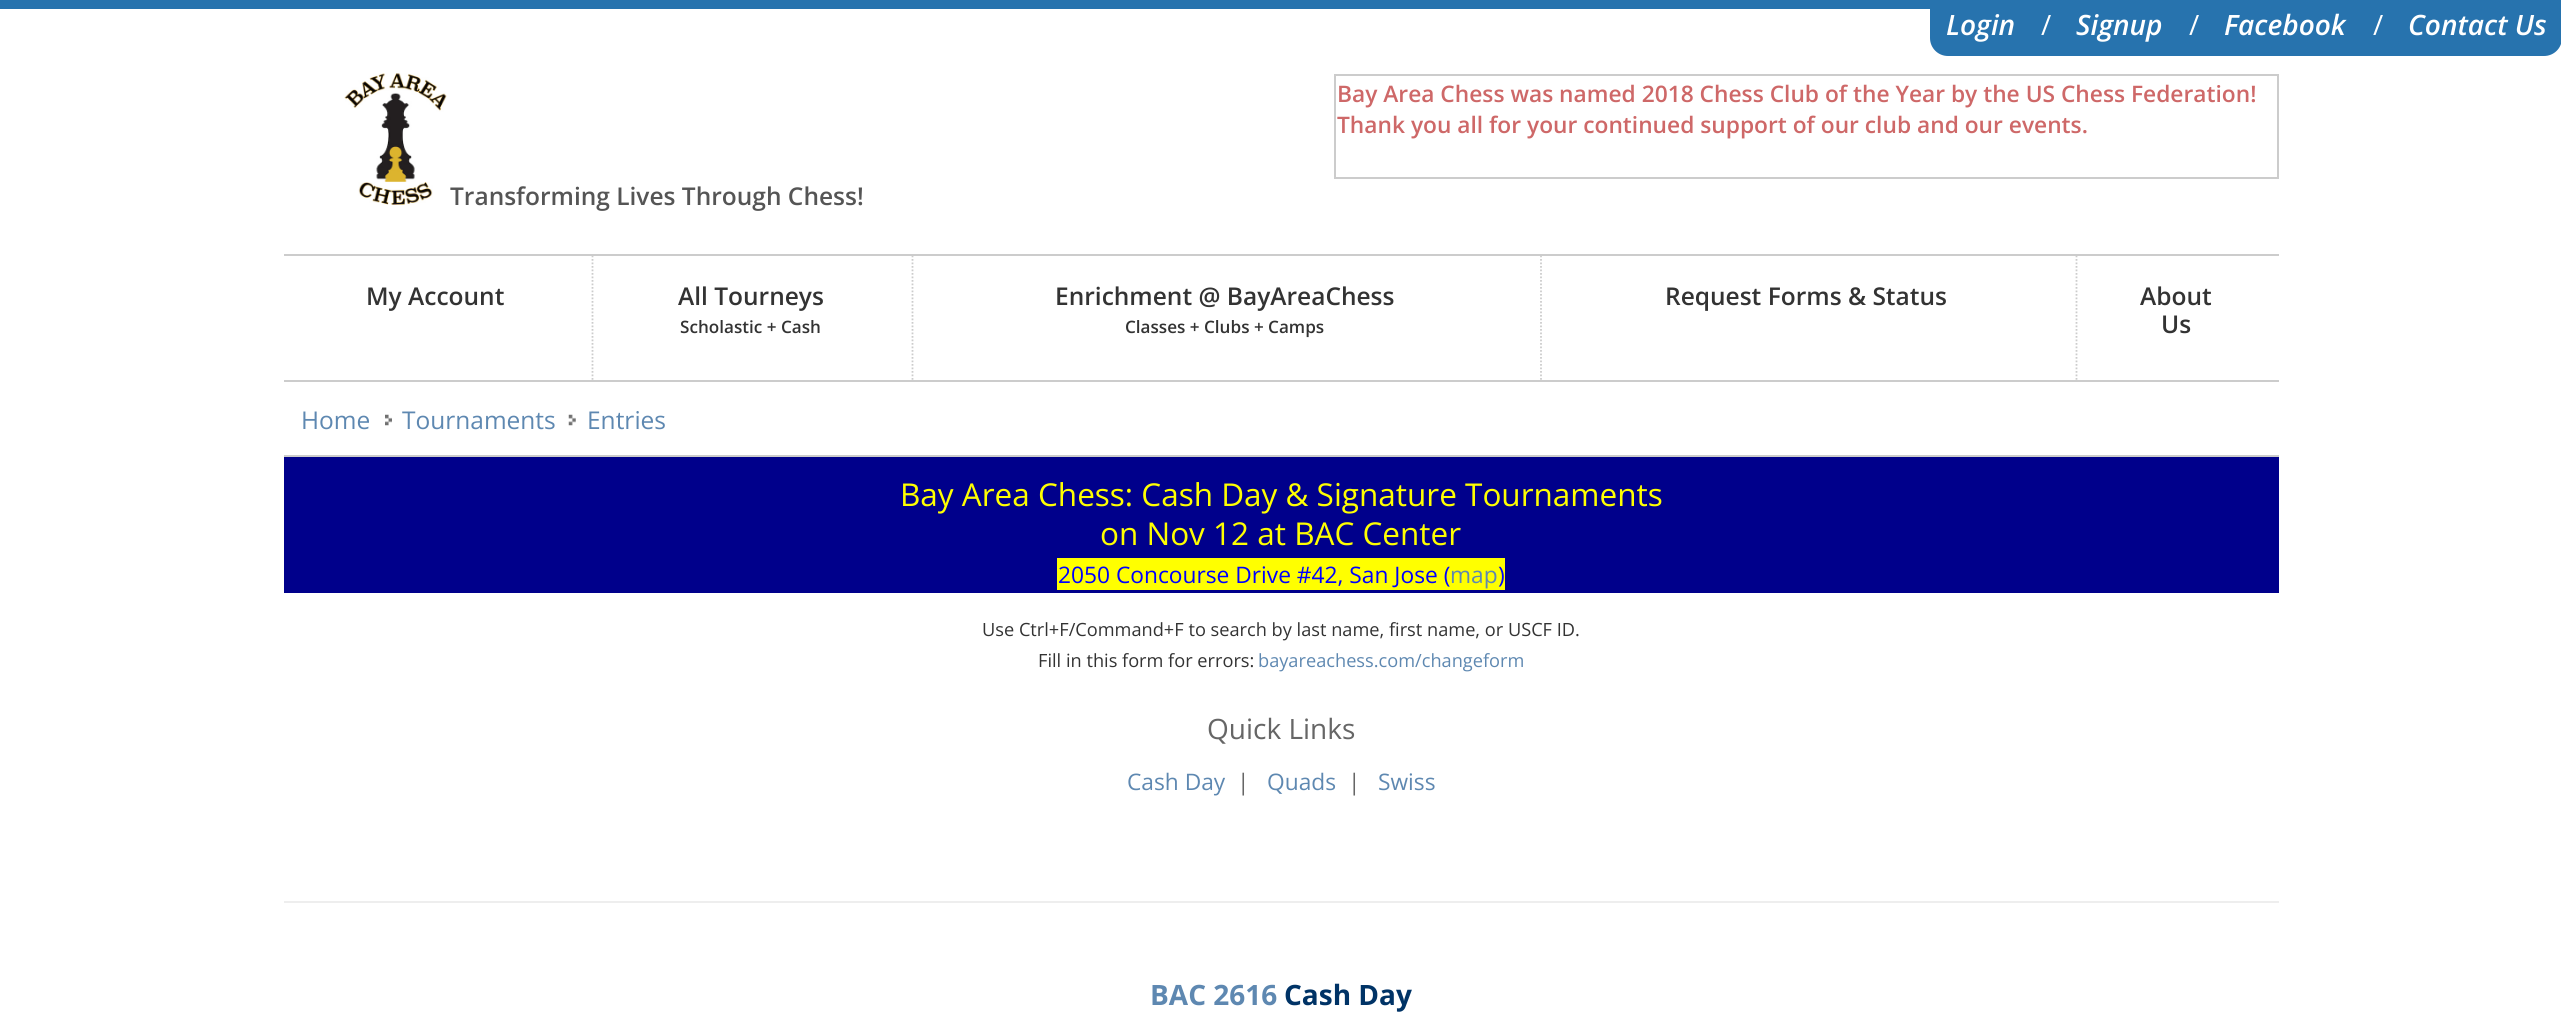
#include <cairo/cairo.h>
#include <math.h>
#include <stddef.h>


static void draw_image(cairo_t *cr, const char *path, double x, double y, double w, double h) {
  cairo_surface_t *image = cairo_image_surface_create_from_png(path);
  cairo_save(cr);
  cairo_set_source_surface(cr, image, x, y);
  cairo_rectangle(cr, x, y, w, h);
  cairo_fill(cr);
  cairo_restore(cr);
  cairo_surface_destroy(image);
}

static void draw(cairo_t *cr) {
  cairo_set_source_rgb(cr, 1, 1, 1);
  cairo_paint(cr);
  cairo_set_source_rgb(cr, 39 / 255.0, 115 / 255.0, 174 / 255.0);
  cairo_rectangle(cr, 0, 0, 2561, 9);
  cairo_fill(cr);
  cairo_new_path(cr);
  cairo_move_to(cr, 1930, 9);
  cairo_line_to(cr, 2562, 9);
  cairo_line_to(cr, 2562, 38);
  cairo_curve_to(cr, 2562, 48, 2554, 56, 2544, 56);
  cairo_line_to(cr, 1948, 56);
  cairo_curve_to(cr, 1938, 56, 1930, 48, 1930, 38);
  cairo_close_path(cr);
  cairo_fill(cr);
  cairo_set_source_rgb(cr, 204 / 255.0, 204 / 255.0, 204 / 255.0);
  cairo_rectangle(cr, 1334, 74, 945, 2);
  cairo_fill(cr);
  cairo_rectangle(cr, 2277, 74, 2, 105);
  cairo_fill(cr);
  cairo_rectangle(cr, 1334, 177, 945, 2);
  cairo_fill(cr);
  cairo_rectangle(cr, 1334, 74, 2, 105);
  cairo_fill(cr);
  draw_image(cr, "images/1.png", 344, 73, 103, 132);
  cairo_rectangle(cr, 284, 254, 1995, 2);
  cairo_fill(cr);
  cairo_rectangle(cr, 284, 380, 1995, 2);
  cairo_fill(cr);
  cairo_new_path(cr);
  cairo_move_to(cr, 592.5, 255.5);
  cairo_line_to(cr, 592.5, 380);
  cairo_set_line_width(cr, 1.8);
  cairo_set_dash(cr, (double[]){1.75, 1.75}, 2, 0);
  cairo_stroke(cr);
  cairo_new_path(cr);
  cairo_move_to(cr, 912.5, 255.5);
  cairo_line_to(cr, 912.5, 380);
  cairo_stroke(cr);
  cairo_new_path(cr);
  cairo_move_to(cr, 1541, 255.5);
  cairo_line_to(cr, 1541, 380);
  cairo_stroke(cr);
  cairo_new_path(cr);
  cairo_move_to(cr, 2076.5, 255.5);
  cairo_line_to(cr, 2076.5, 380);
  cairo_stroke(cr);
  cairo_rectangle(cr, 284, 455, 1995, 2);
  cairo_fill(cr);
  draw_image(cr, "images/2.png", 385, 414, 7, 12);
  draw_image(cr, "images/3.png", 568, 414, 8, 12);
  cairo_set_source_rgb(cr, 0, 0, 139 / 255.0);
  cairo_rectangle(cr, 284, 457, 1995, 136);
  cairo_fill(cr);
  cairo_set_source_rgb(cr, 1, 1, 0);
  cairo_rectangle(cr, 1057, 558, 448, 32);
  cairo_fill(cr);
  cairo_set_source_rgb(cr, 238 / 255.0, 238 / 255.0, 238 / 255.0);
  cairo_rectangle(cr, 284, 901, 1995, 2);
  cairo_fill(cr);
  cairo_select_font_face(cr, "Open Sans SemiBold", CAIRO_FONT_SLANT_ITALIC, CAIRO_FONT_WEIGHT_NORMAL);
  cairo_set_font_size(cr, 28);
  cairo_set_source_rgb(cr, 1, 1, 1);
  cairo_move_to(cr, 1946, 35);
  cairo_show_text(cr, "Login");
  cairo_select_font_face(cr, "Open Sans", CAIRO_FONT_SLANT_NORMAL, CAIRO_FONT_WEIGHT_NORMAL);
  cairo_move_to(cr, 2041, 35);
  cairo_show_text(cr, "/");
  cairo_select_font_face(cr, "Open Sans SemiBold", CAIRO_FONT_SLANT_ITALIC, CAIRO_FONT_WEIGHT_NORMAL);
  cairo_move_to(cr, 2076, 35);
  cairo_show_text(cr, "Signup");
  cairo_select_font_face(cr, "Open Sans", CAIRO_FONT_SLANT_NORMAL, CAIRO_FONT_WEIGHT_NORMAL);
  cairo_move_to(cr, 2189, 35);
  cairo_show_text(cr, "/");
  cairo_select_font_face(cr, "Open Sans SemiBold", CAIRO_FONT_SLANT_ITALIC, CAIRO_FONT_WEIGHT_NORMAL);
  cairo_move_to(cr, 2224, 35);
  cairo_show_text(cr, "Facebook");
  cairo_select_font_face(cr, "Open Sans", CAIRO_FONT_SLANT_NORMAL, CAIRO_FONT_WEIGHT_NORMAL);
  cairo_move_to(cr, 2373, 35);
  cairo_show_text(cr, "/");
  cairo_select_font_face(cr, "Open Sans SemiBold", CAIRO_FONT_SLANT_ITALIC, CAIRO_FONT_WEIGHT_NORMAL);
  cairo_move_to(cr, 2408, 35);
  cairo_show_text(cr, "Contact Us");
  cairo_select_font_face(cr, "Open Sans SemiBold", CAIRO_FONT_SLANT_NORMAL, CAIRO_FONT_WEIGHT_NORMAL);
  cairo_set_font_size(cr, 22.75);
  cairo_set_source_rgb(cr, 206 / 255.0, 104 / 255.0, 104 / 255.0);
  cairo_move_to(cr, 1337, 102);
  cairo_show_text(cr, "Bay Area Chess was named 2018 Chess Club of the Year by the US Chess Federation!");
  cairo_move_to(cr, 1337, 133);
  cairo_show_text(cr, "Thank you all for your continued support of our club and our events.");
  cairo_set_font_size(cr, 24.5);
  cairo_set_source_rgb(cr, 85 / 255.0, 85 / 255.0, 85 / 255.0);
  cairo_move_to(cr, 450, 205);
  cairo_show_text(cr, "Transforming Lives Through Chess!");
  cairo_set_source_rgb(cr, 51 / 255.0, 51 / 255.0, 51 / 255.0);
  cairo_move_to(cr, 366, 305);
  cairo_show_text(cr, "My Account");
  cairo_move_to(cr, 678, 305);
  cairo_show_text(cr, "All Tourneys");
  cairo_set_font_size(cr, 17.1);
  cairo_move_to(cr, 680, 333);
  cairo_show_text(cr, "Scholastic + Cash");
  cairo_set_font_size(cr, 24.5);
  cairo_move_to(cr, 1055, 305);
  cairo_show_text(cr, "Enrichment @ BayAreaChess");
  cairo_set_font_size(cr, 17.1);
  cairo_move_to(cr, 1125, 333);
  cairo_show_text(cr, "Classes + Clubs + Camps");
  cairo_set_font_size(cr, 24.5);
  cairo_move_to(cr, 1665, 305);
  cairo_show_text(cr, "Request Forms & Status");
  cairo_move_to(cr, 2140, 305);
  cairo_show_text(cr, "About");
  cairo_move_to(cr, 2161, 333);
  cairo_show_text(cr, "Us");
  cairo_select_font_face(cr, "Open Sans", CAIRO_FONT_SLANT_NORMAL, CAIRO_FONT_WEIGHT_NORMAL);
  cairo_set_source_rgb(cr, 94 / 255.0, 136 / 255.0, 177 / 255.0);
  cairo_move_to(cr, 301, 429);
  cairo_show_text(cr, "Home");
  cairo_move_to(cr, 402, 429);
  cairo_show_text(cr, "Tournaments");
  cairo_move_to(cr, 587, 429);
  cairo_show_text(cr, "Entries");
  cairo_set_font_size(cr, 31.5);
  cairo_set_source_rgb(cr, 1, 1, 0);
  cairo_move_to(cr, 900, 506);
  cairo_show_text(cr, "Bay Area Chess: Cash Day & Signature Tournaments");
  cairo_move_to(cr, 1100, 545);
  cairo_show_text(cr, "on Nov 12 at BAC Center");
  cairo_set_font_size(cr, 22.75);
  cairo_set_source_rgb(cr, 0, 0, 1);
  cairo_move_to(cr, 1058, 583);
  cairo_show_text(cr, "2050 Concourse Drive #42, San Jose (");
  cairo_set_source_rgb(cr, 94 / 255.0, 136 / 255.0, 177 / 255.0);
  cairo_move_to(cr, 1450, 583);
  cairo_show_text(cr, "map");
  cairo_set_source_rgb(cr, 0, 0, 1);
  cairo_move_to(cr, 1498, 583);
  cairo_show_text(cr, ")");
  cairo_set_font_size(cr, 18.2);
  cairo_set_source_rgb(cr, 51 / 255.0, 51 / 255.0, 51 / 255.0);
  cairo_move_to(cr, 982, 636);
  cairo_show_text(cr, "Use Ctrl+F/Command+F to search by last name, first name, or USCF ID.");
  cairo_move_to(cr, 1038, 667);
  cairo_show_text(cr, "Fill in this form for errors:");
  cairo_set_source_rgb(cr, 94 / 255.0, 136 / 255.0, 177 / 255.0);
  cairo_move_to(cr, 1258, 667);
  cairo_show_text(cr, "bayareachess.com/changeform");
  cairo_set_font_size(cr, 28);
  cairo_set_source_rgb(cr, 102 / 255.0, 102 / 255.0, 102 / 255.0);
  cairo_move_to(cr, 1207, 739);
  cairo_show_text(cr, "Quick Links");
  cairo_set_font_size(cr, 22.75);
  cairo_set_source_rgb(cr, 94 / 255.0, 136 / 255.0, 177 / 255.0);
  cairo_move_to(cr, 1127, 790);
  cairo_show_text(cr, "Cash Day");
  cairo_set_source_rgb(cr, 102 / 255.0, 102 / 255.0, 102 / 255.0);
  cairo_move_to(cr, 1237, 790);
  cairo_show_text(cr, "|");
  cairo_set_source_rgb(cr, 94 / 255.0, 136 / 255.0, 177 / 255.0);
  cairo_move_to(cr, 1267, 790);
  cairo_show_text(cr, "Quads");
  cairo_set_source_rgb(cr, 102 / 255.0, 102 / 255.0, 102 / 255.0);
  cairo_move_to(cr, 1348, 790);
  cairo_show_text(cr, "|");
  cairo_set_source_rgb(cr, 94 / 255.0, 136 / 255.0, 177 / 255.0);
  cairo_move_to(cr, 1378, 790);
  cairo_show_text(cr, "Swiss");
  cairo_select_font_face(cr, "Open Sans", CAIRO_FONT_SLANT_NORMAL, CAIRO_FONT_WEIGHT_BOLD);
  cairo_set_font_size(cr, 28);
  cairo_move_to(cr, 1150, 1005);
  cairo_show_text(cr, "BAC 2616");
  cairo_set_source_rgb(cr, 0, 51 / 255.0, 102 / 255.0);
  cairo_move_to(cr, 1284, 1005);
  cairo_show_text(cr, "Cash Day");
}

int main(void) {
  cairo_surface_t *surface = cairo_image_surface_create(CAIRO_FORMAT_RGB24, 2561, 1029);
  cairo_t *cr = cairo_create(surface);
  cairo_font_options_t *options = cairo_font_options_create();
  cairo_font_options_set_hint_metrics(options, CAIRO_HINT_METRICS_OFF);
  cairo_font_options_set_hint_style(options, CAIRO_HINT_STYLE_NONE);
  cairo_set_font_options(cr, options);
  cairo_set_miter_limit(cr, 4);
  draw(cr);
  cairo_surface_write_to_png(surface, "out.png");
  cairo_font_options_destroy(options);
  cairo_destroy(cr);
  cairo_surface_destroy(surface);
  return 0;
}
